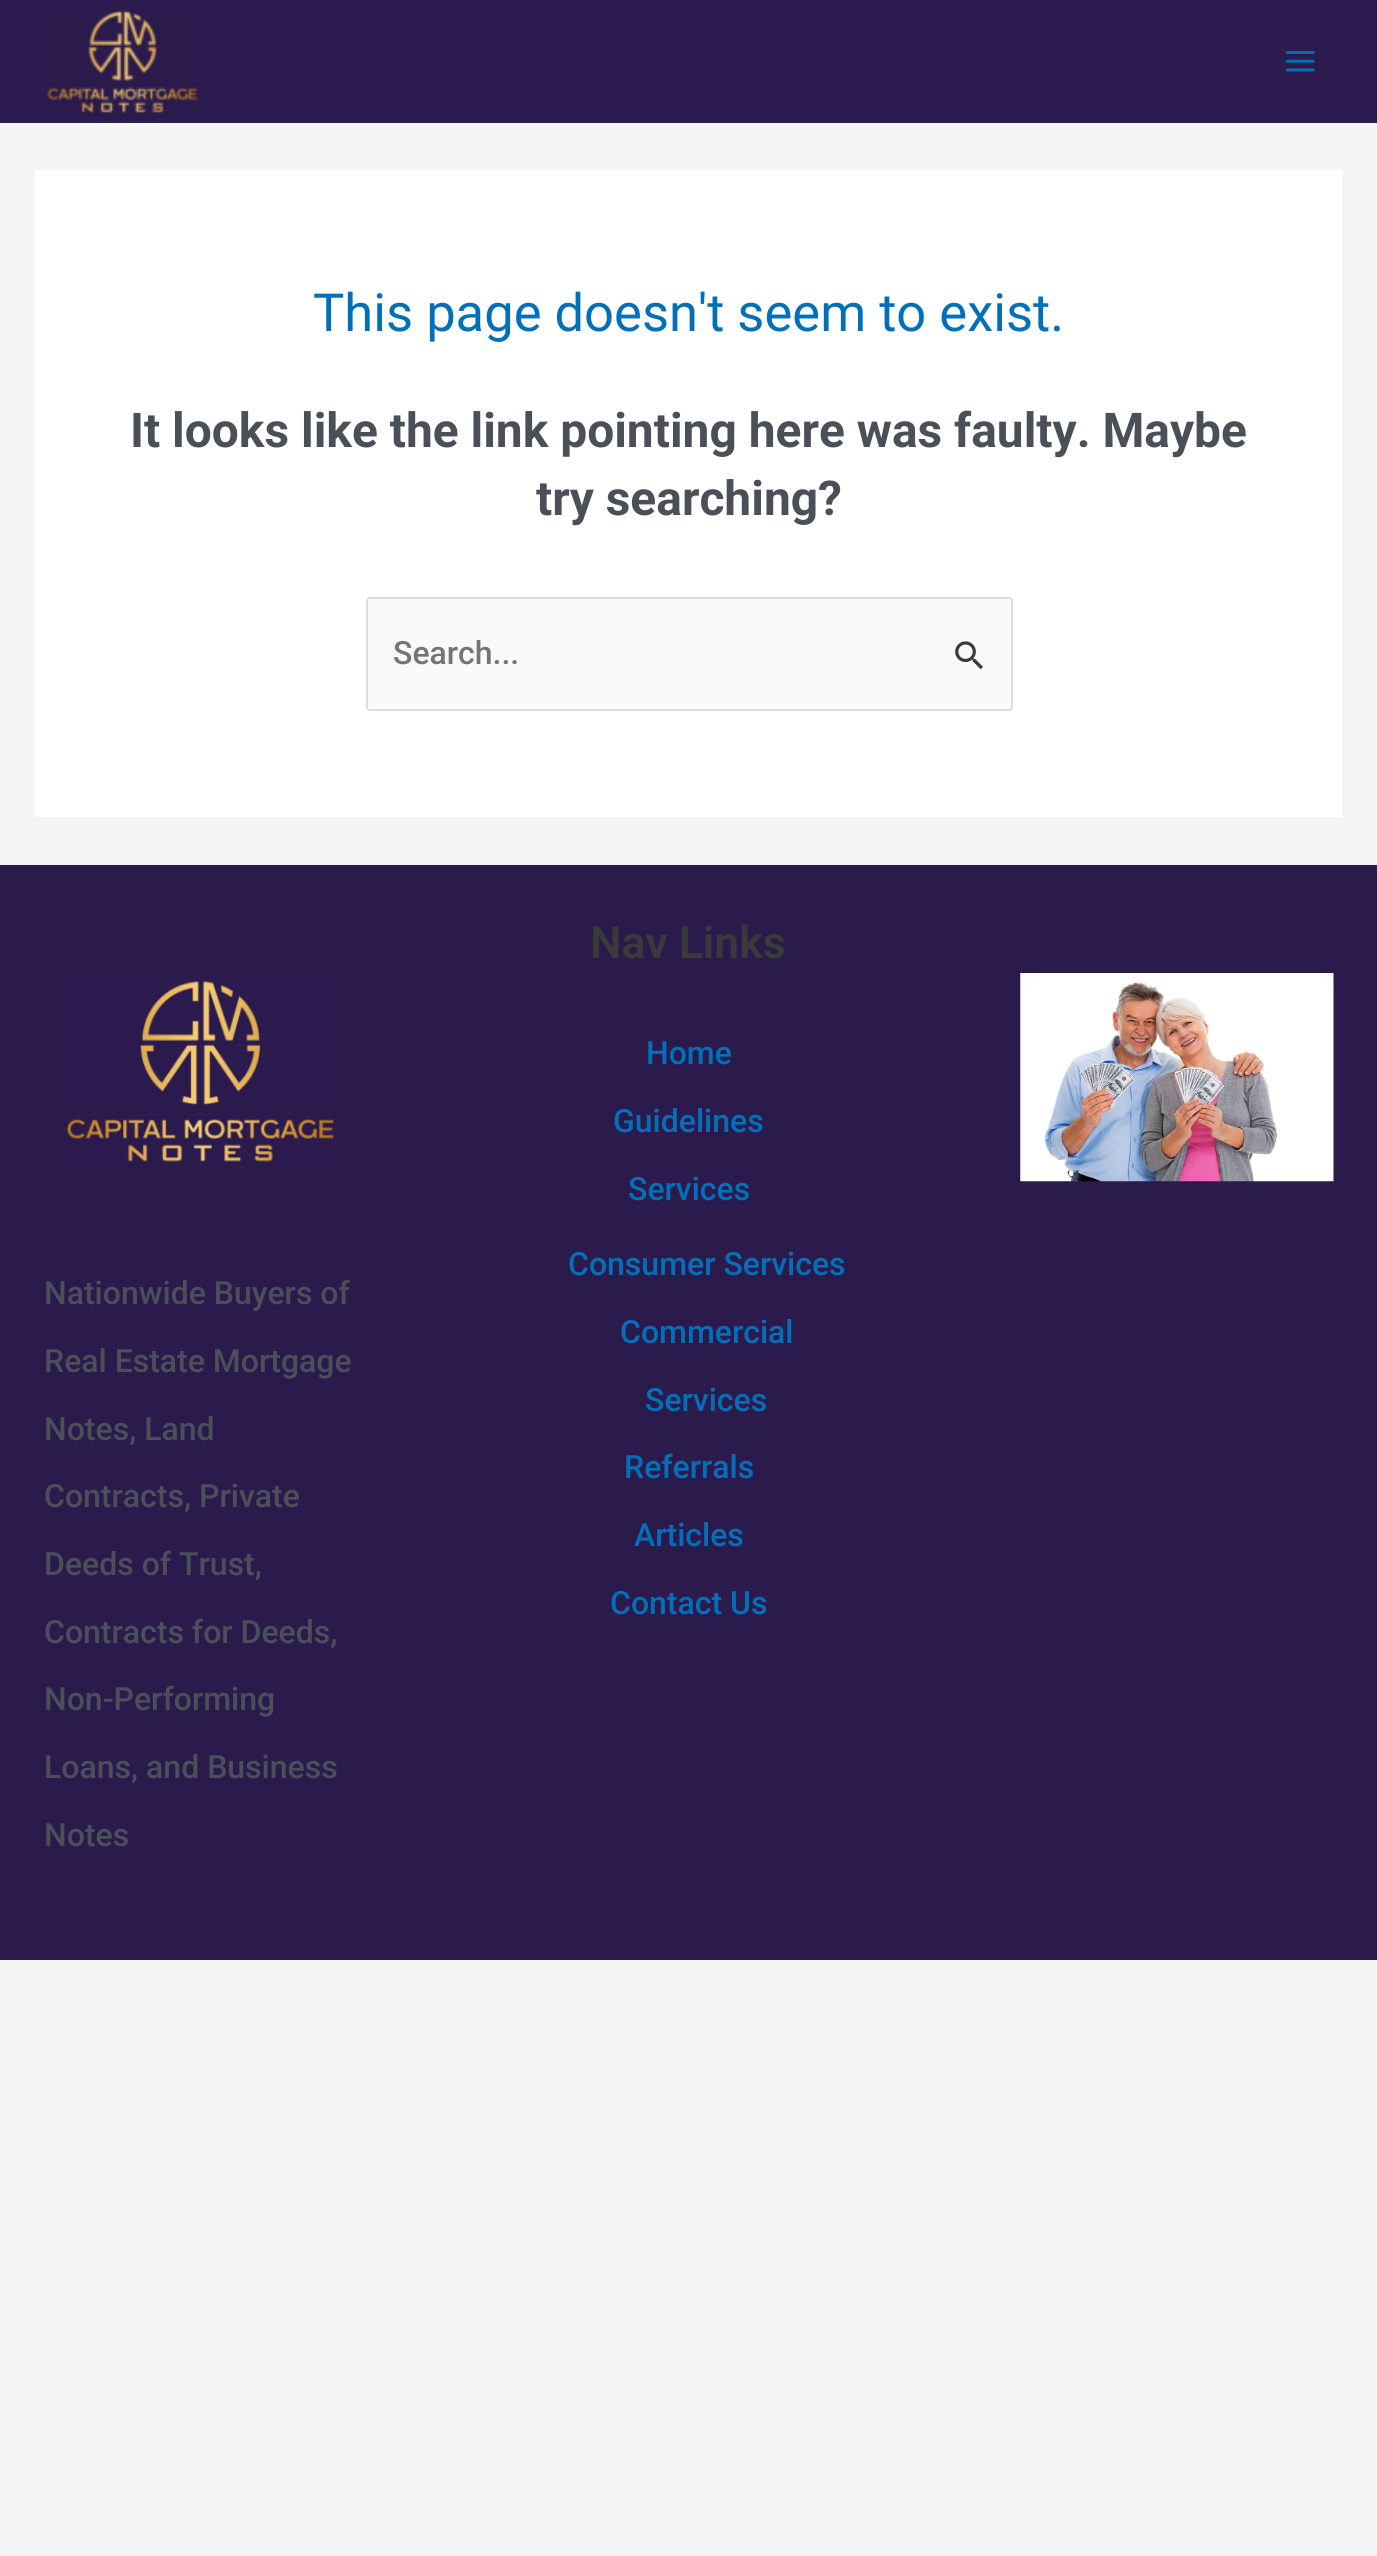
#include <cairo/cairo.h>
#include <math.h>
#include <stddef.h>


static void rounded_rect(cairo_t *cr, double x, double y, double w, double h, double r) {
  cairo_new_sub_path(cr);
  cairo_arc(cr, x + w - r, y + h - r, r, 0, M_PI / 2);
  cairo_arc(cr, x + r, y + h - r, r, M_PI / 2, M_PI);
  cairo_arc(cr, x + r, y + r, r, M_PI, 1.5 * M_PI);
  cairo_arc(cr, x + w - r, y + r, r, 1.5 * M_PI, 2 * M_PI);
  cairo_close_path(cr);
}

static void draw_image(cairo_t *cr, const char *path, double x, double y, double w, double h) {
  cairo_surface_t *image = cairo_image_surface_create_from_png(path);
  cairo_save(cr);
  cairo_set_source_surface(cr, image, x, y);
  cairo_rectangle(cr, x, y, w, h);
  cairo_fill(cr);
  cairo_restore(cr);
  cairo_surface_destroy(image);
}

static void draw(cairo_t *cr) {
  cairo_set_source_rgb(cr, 245 / 255.0, 245 / 255.0, 245 / 255.0);
  cairo_paint(cr);
  cairo_set_source_rgb(cr, 43 / 255.0, 27 / 255.0, 78 / 255.0);
  cairo_rectangle(cr, 0, 0, 1377, 123);
  cairo_fill(cr);
  draw_image(cr, "images/1.png", 47, 10, 151, 103);
  draw_image(cr, "images/2.png", 1285, 51, 30, 21);
  cairo_set_source_rgb(cr, 1, 1, 1);
  cairo_rectangle(cr, 35, 170, 1307, 647);
  cairo_fill(cr);
  cairo_set_source_rgb(cr, 250 / 255.0, 250 / 255.0, 250 / 255.0);
  rounded_rect(cr, 367, 598, 645, 112, 3);
  cairo_fill_preserve(cr);
  cairo_set_source_rgb(cr, 221 / 255.0, 221 / 255.0, 221 / 255.0);
  cairo_stroke(cr);
  draw_image(cr, "images/3.png", 955, 641, 28, 29);
  cairo_set_source_rgb(cr, 43 / 255.0, 27 / 255.0, 77 / 255.0);
  cairo_rectangle(cr, 0, 865, 1377, 1095);
  cairo_fill(cr);
  draw_image(cr, "images/4.png", 1020, 973, 314, 209);
  draw_image(cr, "images/5.png", 66, 981, 268, 181);
  cairo_select_font_face(cr, "Roboto", CAIRO_FONT_SLANT_NORMAL, CAIRO_FONT_WEIGHT_NORMAL);
  cairo_set_font_size(cr, 52.5);
  cairo_set_source_rgb(cr, 1 / 255.0, 112 / 255.0, 185 / 255.0);
  cairo_move_to(cr, 313, 331);
  cairo_show_text(cr, "This page doesn't seem to exist.");
  cairo_select_font_face(cr, "Roboto", CAIRO_FONT_SLANT_NORMAL, CAIRO_FONT_WEIGHT_BOLD);
  cairo_set_font_size(cr, 47.9);
  cairo_set_source_rgb(cr, 75 / 255.0, 79 / 255.0, 88 / 255.0);
  cairo_move_to(cr, 130, 447);
  cairo_show_text(cr, "It looks like the link pointing here was faulty. Maybe");
  cairo_move_to(cr, 536, 515);
  cairo_show_text(cr, "try searching?");
  cairo_select_font_face(cr, "Roboto Medium", CAIRO_FONT_SLANT_NORMAL, CAIRO_FONT_WEIGHT_NORMAL);
  cairo_set_font_size(cr, 32);
  cairo_set_source_rgb(cr, 117 / 255.0, 117 / 255.0, 117 / 255.0);
  cairo_move_to(cr, 393, 664);
  cairo_show_text(cr, "Search...");
  cairo_select_font_face(cr, "Roboto SemiBold", CAIRO_FONT_SLANT_NORMAL, CAIRO_FONT_WEIGHT_NORMAL);
  cairo_set_font_size(cr, 44.5);
  cairo_set_source_rgb(cr, 58 / 255.0, 58 / 255.0, 58 / 255.0);
  cairo_move_to(cr, 590, 958);
  cairo_show_text(cr, "Nav Links");
  cairo_select_font_face(cr, "Roboto Medium", CAIRO_FONT_SLANT_NORMAL, CAIRO_FONT_WEIGHT_NORMAL);
  cairo_set_font_size(cr, 32);
  cairo_set_source_rgb(cr, 1 / 255.0, 112 / 255.0, 185 / 255.0);
  cairo_move_to(cr, 646, 1064);
  cairo_show_text(cr, "Home");
  cairo_move_to(cr, 613, 1132);
  cairo_show_text(cr, "Guidelines");
  cairo_move_to(cr, 628, 1200);
  cairo_show_text(cr, "Services");
  cairo_move_to(cr, 568, 1275);
  cairo_show_text(cr, "Consumer Services");
  cairo_move_to(cr, 620, 1343);
  cairo_show_text(cr, "Commercial");
  cairo_move_to(cr, 645, 1411);
  cairo_show_text(cr, "Services");
  cairo_move_to(cr, 624, 1478);
  cairo_show_text(cr, "Referrals");
  cairo_move_to(cr, 634, 1546);
  cairo_show_text(cr, "Articles");
  cairo_move_to(cr, 610, 1614);
  cairo_show_text(cr, "Contact Us");
  cairo_set_source_rgb(cr, 75 / 255.0, 79 / 255.0, 88 / 255.0);
  cairo_move_to(cr, 44, 1304);
  cairo_show_text(cr, "Nationwide Buyers of");
  cairo_move_to(cr, 44, 1372);
  cairo_show_text(cr, "Real Estate Mortgage");
  cairo_move_to(cr, 44, 1440);
  cairo_show_text(cr, "Notes, Land");
  cairo_move_to(cr, 44, 1507);
  cairo_show_text(cr, "Contracts, Private");
  cairo_move_to(cr, 44, 1575);
  cairo_show_text(cr, "Deeds of Trust,");
  cairo_move_to(cr, 44, 1643);
  cairo_show_text(cr, "Contracts for Deeds,");
  cairo_move_to(cr, 44, 1710);
  cairo_show_text(cr, "Non-Performing");
  cairo_move_to(cr, 44, 1778);
  cairo_show_text(cr, "Loans, and Business");
  cairo_move_to(cr, 44, 1846);
  cairo_show_text(cr, "Notes");
}

int main(void) {
  cairo_surface_t *surface = cairo_image_surface_create(CAIRO_FORMAT_RGB24, 1377, 2556);
  cairo_t *cr = cairo_create(surface);
  cairo_font_options_t *options = cairo_font_options_create();
  cairo_font_options_set_hint_metrics(options, CAIRO_HINT_METRICS_OFF);
  cairo_font_options_set_hint_style(options, CAIRO_HINT_STYLE_NONE);
  cairo_set_font_options(cr, options);
  cairo_set_miter_limit(cr, 4);
  draw(cr);
  cairo_surface_write_to_png(surface, "out.png");
  cairo_font_options_destroy(options);
  cairo_destroy(cr);
  cairo_surface_destroy(surface);
  return 0;
}
